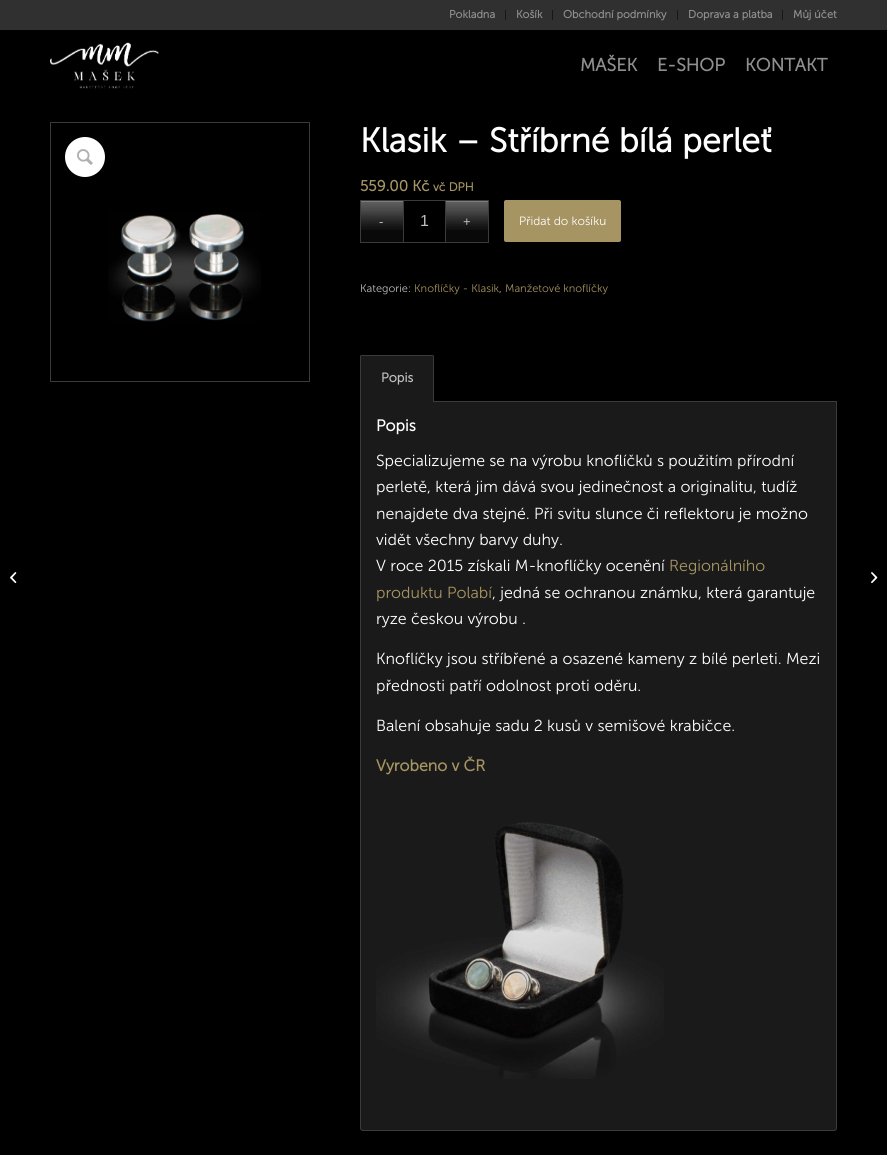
#include <cairo/cairo.h>
#include <math.h>
#include <stddef.h>


static void rounded_rect(cairo_t *cr, double x, double y, double w, double h, double r) {
  cairo_new_sub_path(cr);
  cairo_arc(cr, x + w - r, y + h - r, r, 0, M_PI / 2);
  cairo_arc(cr, x + r, y + h - r, r, M_PI / 2, M_PI);
  cairo_arc(cr, x + r, y + r, r, M_PI, 1.5 * M_PI);
  cairo_arc(cr, x + w - r, y + r, r, 1.5 * M_PI, 2 * M_PI);
  cairo_close_path(cr);
}

static void draw_image(cairo_t *cr, const char *path, double x, double y, double w, double h) {
  cairo_surface_t *image = cairo_image_surface_create_from_png(path);
  cairo_save(cr);
  cairo_set_source_surface(cr, image, x, y);
  cairo_rectangle(cr, x, y, w, h);
  cairo_fill(cr);
  cairo_restore(cr);
  cairo_surface_destroy(image);
}

static void draw(cairo_t *cr) {
  cairo_set_source_rgb(cr, 0, 0, 0);
  cairo_paint(cr);
  cairo_set_source_rgb(cr, 48 / 255.0, 48 / 255.0, 48 / 255.0);
  cairo_rectangle(cr, 0, 0, 887, 30);
  cairo_fill(cr);
  cairo_set_source_rgb(cr, 23 / 255.0, 23 / 255.0, 23 / 255.0);
  cairo_rectangle(cr, 505, 10, 1, 10);
  cairo_fill(cr);
  cairo_rectangle(cr, 552, 10, 1, 10);
  cairo_fill(cr);
  cairo_rectangle(cr, 677, 10, 1, 10);
  cairo_fill(cr);
  cairo_rectangle(cr, 782, 10, 1, 10);
  cairo_fill(cr);
  draw_image(cr, "images/1.png", 50, 42, 109, 47);
  draw_image(cr, "images/2.png", 10, 572, 7, 12);
  cairo_rectangle(cr, 50.5, 122.5, 259, 259);
  cairo_set_source_rgb(cr, 59 / 255.0, 59 / 255.0, 59 / 255.0);
  cairo_set_line_width(cr, 1);
  cairo_stroke(cr);
  draw_image(cr, "images/3.png", 108, 212, 153, 110);
  cairo_set_source_rgb(cr, 1, 1, 1);
  cairo_arc(cr, 85, 157, 20, 0, 2 * M_PI);
  cairo_fill(cr);
  draw_image(cr, "images/4.png", 77, 149, 16, 16);
  cairo_set_source_rgb(cr, 9 / 255.0, 9 / 255.0, 9 / 255.0);
  cairo_rectangle(cr, 361, 201, 42, 41);
  cairo_fill(cr);
  draw_image(cr, "images/5.png", 361, 201, 42, 29);
  cairo_rectangle(cr, 403.5, 200.5, 42, 42);
  cairo_set_source_rgb(cr, 59 / 255.0, 59 / 255.0, 59 / 255.0);
  cairo_stroke(cr);
  cairo_set_source_rgb(cr, 9 / 255.0, 9 / 255.0, 9 / 255.0);
  cairo_rectangle(cr, 446, 201, 42, 41);
  cairo_fill(cr);
  draw_image(cr, "images/5.png", 446, 201, 42, 29);
  cairo_set_source_rgb(cr, 59 / 255.0, 59 / 255.0, 59 / 255.0);
  cairo_rectangle(cr, 360, 200, 43, 1);
  cairo_fill(cr);
  cairo_rectangle(cr, 360, 242, 43, 1);
  cairo_fill(cr);
  cairo_rectangle(cr, 360, 200, 1, 43);
  cairo_fill(cr);
  cairo_rectangle(cr, 446, 200, 43, 1);
  cairo_fill(cr);
  cairo_rectangle(cr, 488, 200, 1, 43);
  cairo_fill(cr);
  cairo_rectangle(cr, 446, 242, 43, 1);
  cairo_fill(cr);
  cairo_set_source_rgb(cr, 166 / 255.0, 148 / 255.0, 98 / 255.0);
  rounded_rect(cr, 504, 200, 117, 42, 2);
  cairo_fill(cr);
  cairo_set_source_rgb(cr, 26 / 255.0, 26 / 255.0, 26 / 255.0);
  cairo_new_path(cr);
  cairo_move_to(cr, 360.5, 401.5);
  cairo_line_to(cr, 836.5, 401.5);
  cairo_line_to(cr, 836.5, 1128);
  cairo_curve_to(cr, 836.5, 1129.5, 835.5, 1130.5, 834, 1130.5);
  cairo_line_to(cr, 363, 1130.5);
  cairo_curve_to(cr, 361.5, 1130.5, 360.5, 1129.5, 360.5, 1128);
  cairo_close_path(cr);
  cairo_fill_preserve(cr);
  cairo_set_source_rgb(cr, 59 / 255.0, 59 / 255.0, 59 / 255.0);
  cairo_stroke(cr);
  cairo_set_source_rgb(cr, 26 / 255.0, 26 / 255.0, 26 / 255.0);
  cairo_rectangle(cr, 360, 355, 74, 47);
  cairo_fill(cr);
  cairo_set_source_rgb(cr, 59 / 255.0, 59 / 255.0, 59 / 255.0);
  cairo_rectangle(cr, 361, 355, 72, 1);
  cairo_fill(cr);
  cairo_rectangle(cr, 433, 356, 1, 46);
  cairo_fill(cr);
  cairo_rectangle(cr, 360, 356, 1, 46);
  cairo_fill(cr);
  draw_image(cr, "images/6.png", 376, 822, 288, 257);
  draw_image(cr, "images/7.png", 871, 572, 7, 12);
  cairo_select_font_face(cr, "Museo Sans", CAIRO_FONT_SLANT_NORMAL, CAIRO_FONT_WEIGHT_BOLD);
  cairo_set_font_size(cr, 11);
  cairo_set_source_rgb(cr, 143 / 255.0, 143 / 255.0, 143 / 255.0);
  cairo_move_to(cr, 449, 18);
  cairo_show_text(cr, "Pokladna");
  cairo_move_to(cr, 516, 18);
  cairo_show_text(cr, "Košík");
  cairo_move_to(cr, 563, 18);
  cairo_show_text(cr, "Obchodní podmínky");
  cairo_move_to(cr, 688, 18);
  cairo_show_text(cr, "Doprava a platba");
  cairo_move_to(cr, 793, 18);
  cairo_show_text(cr, "Můj účet");
  cairo_set_font_size(cr, 18);
  cairo_move_to(cr, 580, 71);
  cairo_show_text(cr, "MAŠEK");
  cairo_move_to(cr, 657, 71);
  cairo_show_text(cr, "E-SHOP");
  cairo_move_to(cr, 745, 71);
  cairo_show_text(cr, "KONTAKT");
  cairo_set_font_size(cr, 34);
  cairo_set_source_rgb(cr, 1, 1, 1);
  cairo_move_to(cr, 360, 152);
  cairo_show_text(cr, "Klasik – Stříbrné bílá perleť");
  cairo_set_font_size(cr, 15);
  cairo_set_source_rgb(cr, 166 / 255.0, 148 / 255.0, 98 / 255.0);
  cairo_move_to(cr, 360, 191);
  cairo_show_text(cr, "559.00 Kč");
  cairo_set_font_size(cr, 12);
  cairo_move_to(cr, 433, 191);
  cairo_show_text(cr, "vč DPH");
  cairo_select_font_face(cr, "Liberation Sans", CAIRO_FONT_SLANT_NORMAL, CAIRO_FONT_WEIGHT_NORMAL);
  cairo_set_font_size(cr, 16);
  cairo_set_source_rgb(cr, 191 / 255.0, 191 / 255.0, 191 / 255.0);
  cairo_move_to(cr, 420, 226);
  cairo_show_text(cr, "1");
  cairo_set_font_size(cr, 13);
  cairo_move_to(cr, 379, 226);
  cairo_show_text(cr, "-");
  cairo_move_to(cr, 463, 226);
  cairo_show_text(cr, "+");
  cairo_select_font_face(cr, "Museo Sans Light", CAIRO_FONT_SLANT_NORMAL, CAIRO_FONT_WEIGHT_NORMAL);
  cairo_set_font_size(cr, 12);
  cairo_set_source_rgb(cr, 1, 1, 1);
  cairo_move_to(cr, 519, 225);
  cairo_show_text(cr, "Přidat do košíku");
  cairo_set_font_size(cr, 11);
  cairo_set_source_rgb(cr, 191 / 255.0, 191 / 255.0, 191 / 255.0);
  cairo_move_to(cr, 360, 292);
  cairo_show_text(cr, "Kategorie:");
  cairo_set_source_rgb(cr, 166 / 255.0, 148 / 255.0, 98 / 255.0);
  cairo_move_to(cr, 414, 292);
  cairo_show_text(cr, "Knoflíčky - Klasik");
  cairo_set_source_rgb(cr, 191 / 255.0, 191 / 255.0, 191 / 255.0);
  cairo_move_to(cr, 499, 292);
  cairo_show_text(cr, ",");
  cairo_set_source_rgb(cr, 166 / 255.0, 148 / 255.0, 98 / 255.0);
  cairo_move_to(cr, 505, 292);
  cairo_show_text(cr, "Manžetové knoflíčky");
  cairo_select_font_face(cr, "Museo Sans", CAIRO_FONT_SLANT_NORMAL, CAIRO_FONT_WEIGHT_BOLD);
  cairo_set_font_size(cr, 13);
  cairo_set_source_rgb(cr, 191 / 255.0, 191 / 255.0, 191 / 255.0);
  cairo_move_to(cr, 381, 382);
  cairo_show_text(cr, "Popis");
  cairo_set_font_size(cr, 16);
  cairo_set_source_rgb(cr, 1, 1, 1);
  cairo_move_to(cr, 376, 431);
  cairo_show_text(cr, "Popis");
  cairo_select_font_face(cr, "Museo Sans Light", CAIRO_FONT_SLANT_NORMAL, CAIRO_FONT_WEIGHT_NORMAL);
  cairo_move_to(cr, 376, 466);
  cairo_show_text(cr, "Specializujeme se na výrobu knoflíčků s použitím přírodní");
  cairo_move_to(cr, 376, 492);
  cairo_show_text(cr, "perletě, která jim dává svou jedinečnost a originalitu, tudíž");
  cairo_move_to(cr, 376, 519);
  cairo_show_text(cr, "nenajdete dva stejné. Při svitu slunce či reflektoru je možno");
  cairo_move_to(cr, 376, 545);
  cairo_show_text(cr, "vidět všechny barvy duhy.");
  cairo_move_to(cr, 376, 571);
  cairo_show_text(cr, "V roce 2015 získali M-knoflíčky ocenění");
  cairo_set_source_rgb(cr, 166 / 255.0, 148 / 255.0, 98 / 255.0);
  cairo_move_to(cr, 669, 571);
  cairo_show_text(cr, "Regionálního");
  cairo_move_to(cr, 376, 598);
  cairo_show_text(cr, "produktu Polabí");
  cairo_set_source_rgb(cr, 1, 1, 1);
  cairo_move_to(cr, 492, 598);
  cairo_show_text(cr, ", jedná se ochranou známku, která garantuje");
  cairo_move_to(cr, 376, 624);
  cairo_show_text(cr, "ryze českou výrobu .");
  cairo_move_to(cr, 376, 664);
  cairo_show_text(cr, "Knoflíčky jsou stříbřené a osazené kameny z bílé perleti. Mezi");
  cairo_move_to(cr, 376, 691);
  cairo_show_text(cr, "přednosti patří odolnost proti oděru.");
  cairo_move_to(cr, 376, 731);
  cairo_show_text(cr, "Balení obsahuje sadu 2 kusů v semišové krabičce.");
  cairo_select_font_face(cr, "Museo Sans", CAIRO_FONT_SLANT_NORMAL, CAIRO_FONT_WEIGHT_BOLD);
  cairo_set_source_rgb(cr, 166 / 255.0, 148 / 255.0, 98 / 255.0);
  cairo_move_to(cr, 376, 771);
  cairo_show_text(cr, "Vyrobeno v ČR");
}

int main(void) {
  cairo_surface_t *surface = cairo_image_surface_create(CAIRO_FORMAT_RGB24, 887, 1155);
  cairo_t *cr = cairo_create(surface);
  cairo_font_options_t *options = cairo_font_options_create();
  cairo_font_options_set_hint_metrics(options, CAIRO_HINT_METRICS_OFF);
  cairo_font_options_set_hint_style(options, CAIRO_HINT_STYLE_NONE);
  cairo_set_font_options(cr, options);
  cairo_set_miter_limit(cr, 4);
  draw(cr);
  cairo_surface_write_to_png(surface, "out.png");
  cairo_font_options_destroy(options);
  cairo_destroy(cr);
  cairo_surface_destroy(surface);
  return 0;
}
